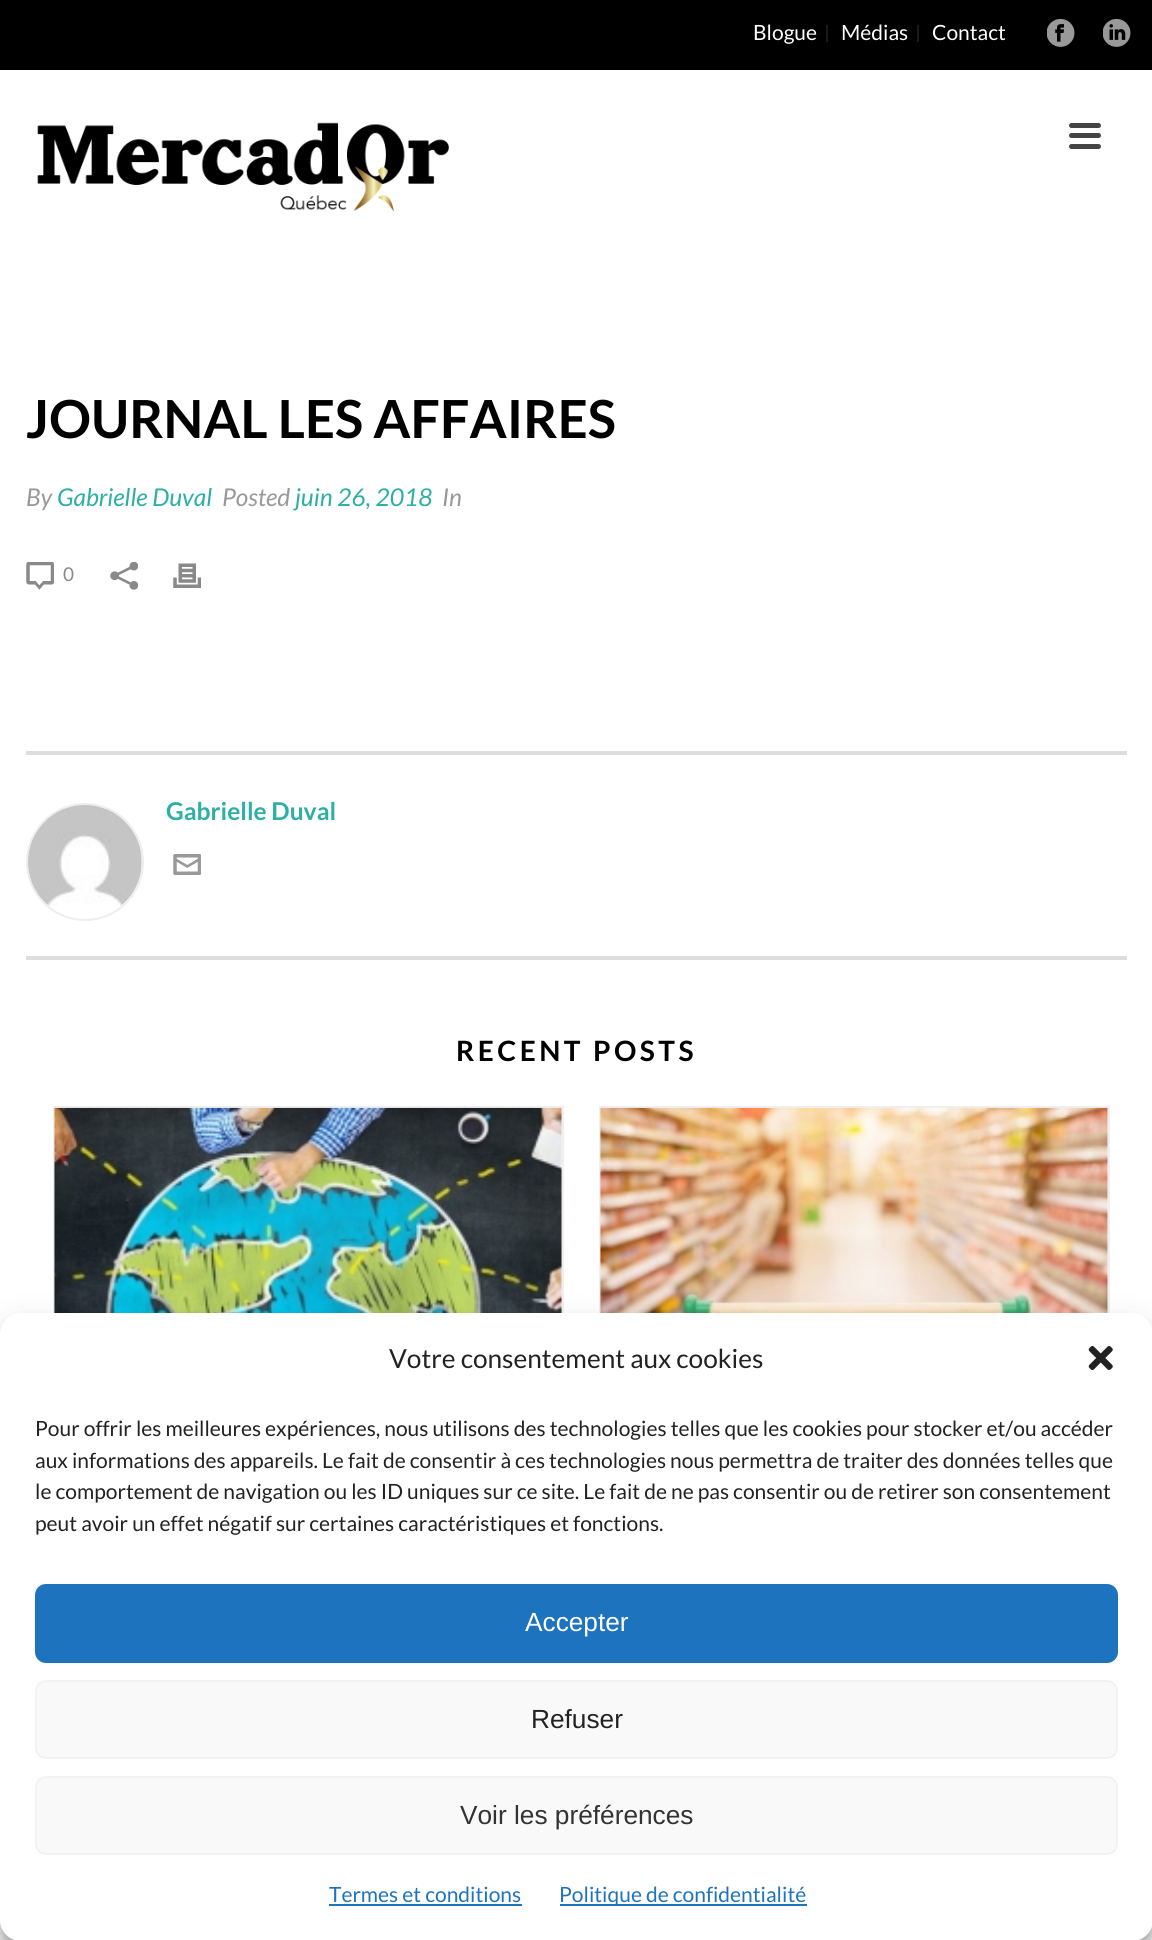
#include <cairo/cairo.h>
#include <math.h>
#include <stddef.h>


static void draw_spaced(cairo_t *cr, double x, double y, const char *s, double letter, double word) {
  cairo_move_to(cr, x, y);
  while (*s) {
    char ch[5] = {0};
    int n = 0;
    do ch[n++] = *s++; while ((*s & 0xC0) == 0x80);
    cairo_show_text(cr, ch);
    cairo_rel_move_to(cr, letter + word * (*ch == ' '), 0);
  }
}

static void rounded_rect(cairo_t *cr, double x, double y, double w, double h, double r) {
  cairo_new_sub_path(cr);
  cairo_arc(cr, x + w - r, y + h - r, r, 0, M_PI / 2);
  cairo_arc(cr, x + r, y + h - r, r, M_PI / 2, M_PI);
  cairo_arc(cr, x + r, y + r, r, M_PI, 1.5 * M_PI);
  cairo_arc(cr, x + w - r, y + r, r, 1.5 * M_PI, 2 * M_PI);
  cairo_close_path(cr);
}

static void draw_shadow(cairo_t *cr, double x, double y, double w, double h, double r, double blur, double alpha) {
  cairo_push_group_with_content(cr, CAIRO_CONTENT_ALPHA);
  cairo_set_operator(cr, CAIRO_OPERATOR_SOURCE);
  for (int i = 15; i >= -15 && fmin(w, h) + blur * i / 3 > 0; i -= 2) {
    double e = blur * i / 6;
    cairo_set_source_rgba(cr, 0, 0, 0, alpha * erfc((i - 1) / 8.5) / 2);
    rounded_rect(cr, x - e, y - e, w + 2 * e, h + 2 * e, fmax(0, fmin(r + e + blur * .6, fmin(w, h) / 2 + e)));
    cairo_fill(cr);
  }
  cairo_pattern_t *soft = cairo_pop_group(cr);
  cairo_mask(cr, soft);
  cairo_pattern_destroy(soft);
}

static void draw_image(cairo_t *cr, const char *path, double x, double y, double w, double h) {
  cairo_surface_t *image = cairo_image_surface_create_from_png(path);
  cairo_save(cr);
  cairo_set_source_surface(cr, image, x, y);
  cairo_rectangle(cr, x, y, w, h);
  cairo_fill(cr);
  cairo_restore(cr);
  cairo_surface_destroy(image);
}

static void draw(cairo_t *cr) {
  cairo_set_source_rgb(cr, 1, 1, 1);
  cairo_paint(cr);
  cairo_set_source_rgb(cr, 0, 0, 0);
  cairo_rectangle(cr, 0, 0, 1152, 70);
  cairo_fill(cr);
  cairo_set_source_rgb(cr, 26 / 255.0, 26 / 255.0, 26 / 255.0);
  cairo_rectangle(cr, 826, 25, 2, 17);
  cairo_fill(cr);
  cairo_rectangle(cr, 917, 25, 2, 17);
  cairo_fill(cr);
  draw_image(cr, "images/1.png", 1047, 18, 28, 29);
  draw_image(cr, "images/2.png", 1103, 18, 28, 29);
  draw_image(cr, "images/3.png", 37, 122, 412, 90);
  cairo_set_source_rgb(cr, 68 / 255.0, 68 / 255.0, 68 / 255.0);
  rounded_rect(cr, 1069, 123, 32, 5, 2.5);
  cairo_fill(cr);
  rounded_rect(cr, 1069, 133, 32, 5, 2.5);
  cairo_fill(cr);
  rounded_rect(cr, 1069, 144, 32, 5, 2.5);
  cairo_fill(cr);
  draw_image(cr, "images/4.png", 26, 562, 28, 28);
  draw_image(cr, "images/5.png", 110, 562, 28, 28);
  draw_image(cr, "images/6.png", 173, 563, 28, 25);
  cairo_set_source_rgb(cr, 221 / 255.0, 221 / 255.0, 221 / 255.0);
  cairo_rectangle(cr, 26, 751, 1101, 4);
  cairo_fill(cr);
  cairo_rectangle(cr, 26, 956, 1101, 4);
  cairo_fill(cr);
  cairo_arc(cr, 85, 862, 58, 0, 2 * M_PI);
  cairo_set_source_rgb(cr, 238 / 255.0, 238 / 255.0, 238 / 255.0);
  cairo_stroke(cr);
  draw_image(cr, "images/7.png", 28, 805, 114, 101);
  draw_image(cr, "images/8.png", 173, 854, 28, 21);
  cairo_rectangle(cr, 54, 1107, 509, 493);
  cairo_set_source_rgb(cr, 239 / 255.0, 239 / 255.0, 239 / 255.0);
  cairo_stroke(cr);
  draw_image(cr, "images/9.png", 54, 1107, 508, 206);
  cairo_rectangle(cr, 600, 1107, 509, 493);
  cairo_stroke(cr);
  draw_image(cr, "images/10.png", 600, 1107, 508, 206);
  cairo_set_source_rgb(cr, 0, 0, 0);
  draw_shadow(cr, 0, 1323, 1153, 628, 21, 5, 0.23);
  draw_shadow(cr, 0, 1330, 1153, 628, 21, 17.5, 0.19);
  cairo_set_source_rgb(cr, 1, 1, 1);
  rounded_rect(cr, 0, 1313, 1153, 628, 21);
  cairo_fill(cr);
  draw_image(cr, "images/11.png", 1088, 1346, 25, 24);
  cairo_set_source_rgb(cr, 30 / 255.0, 115 / 255.0, 190 / 255.0);
  rounded_rect(cr, 36, 1585, 1081, 77, 10);
  cairo_fill_preserve(cr);
  cairo_stroke(cr);
  cairo_set_source_rgb(cr, 249 / 255.0, 249 / 255.0, 249 / 255.0);
  rounded_rect(cr, 36, 1681, 1081, 77, 10);
  cairo_fill_preserve(cr);
  cairo_set_source_rgb(cr, 242 / 255.0, 242 / 255.0, 242 / 255.0);
  cairo_stroke(cr);
  cairo_set_source_rgb(cr, 249 / 255.0, 249 / 255.0, 249 / 255.0);
  rounded_rect(cr, 36, 1777, 1081, 77, 10);
  cairo_fill_preserve(cr);
  cairo_set_source_rgb(cr, 242 / 255.0, 242 / 255.0, 242 / 255.0);
  cairo_stroke(cr);
  cairo_set_source_rgb(cr, 30 / 255.0, 115 / 255.0, 190 / 255.0);
  cairo_rectangle(cr, 329, 1904, 193, 2);
  cairo_fill(cr);
  cairo_rectangle(cr, 560, 1904, 247, 2);
  cairo_fill(cr);
  cairo_select_font_face(cr, "Lato", CAIRO_FONT_SLANT_NORMAL, CAIRO_FONT_WEIGHT_NORMAL);
  cairo_set_font_size(cr, 21);
  cairo_set_source_rgb(cr, 1, 1, 1);
  cairo_move_to(cr, 753, 40);
  cairo_show_text(cr, "Blogue");
  cairo_move_to(cr, 841, 40);
  cairo_show_text(cr, "Médias");
  cairo_move_to(cr, 932, 40);
  cairo_show_text(cr, "Contact");
  cairo_select_font_face(cr, "Lato", CAIRO_FONT_SLANT_NORMAL, CAIRO_FONT_WEIGHT_BOLD);
  cairo_set_font_size(cr, 52.5);
  cairo_set_source_rgb(cr, 0, 0, 0);
  cairo_move_to(cr, 26, 438);
  cairo_show_text(cr, "JOURNAL LES AFFAIRES");
  cairo_select_font_face(cr, "Lato", CAIRO_FONT_SLANT_ITALIC, CAIRO_FONT_WEIGHT_NORMAL);
  cairo_set_font_size(cr, 24.5);
  cairo_set_source_rgb(cr, 153 / 255.0, 153 / 255.0, 153 / 255.0);
  cairo_move_to(cr, 26, 506);
  cairo_show_text(cr, "By");
  cairo_set_source_rgb(cr, 44 / 255.0, 175 / 255.0, 164 / 255.0);
  cairo_move_to(cr, 57, 506);
  cairo_show_text(cr, "Gabrielle Duval");
  cairo_set_source_rgb(cr, 153 / 255.0, 153 / 255.0, 153 / 255.0);
  cairo_move_to(cr, 222, 506);
  cairo_show_text(cr, "Posted");
  cairo_set_source_rgb(cr, 44 / 255.0, 175 / 255.0, 164 / 255.0);
  cairo_move_to(cr, 295, 506);
  cairo_show_text(cr, "juin 26, 2018");
  cairo_set_source_rgb(cr, 153 / 255.0, 153 / 255.0, 153 / 255.0);
  cairo_move_to(cr, 442, 506);
  cairo_show_text(cr, "In");
  cairo_select_font_face(cr, "Lato", CAIRO_FONT_SLANT_NORMAL, CAIRO_FONT_WEIGHT_NORMAL);
  cairo_set_font_size(cr, 19);
  cairo_set_source_rgb(cr, 137 / 255.0, 137 / 255.0, 137 / 255.0);
  cairo_move_to(cr, 63, 581);
  cairo_show_text(cr, "0");
  cairo_select_font_face(cr, "Lato", CAIRO_FONT_SLANT_NORMAL, CAIRO_FONT_WEIGHT_BOLD);
  cairo_set_font_size(cr, 24.5);
  cairo_set_source_rgb(cr, 44 / 255.0, 175 / 255.0, 164 / 255.0);
  cairo_move_to(cr, 166, 820);
  cairo_show_text(cr, "Gabrielle Duval");
  cairo_set_font_size(cr, 28);
  cairo_set_source_rgb(cr, 0, 0, 0);
  draw_spaced(cr, 456, 1061, "RECENT POSTS", 3.5, 0);
  cairo_select_font_face(cr, "Lato", CAIRO_FONT_SLANT_NORMAL, CAIRO_FONT_WEIGHT_NORMAL);
  cairo_set_font_size(cr, 26.25);
  cairo_set_source_rgb(cr, 34 / 255.0, 34 / 255.0, 34 / 255.0);
  cairo_move_to(cr, 389, 1368);
  cairo_show_text(cr, "Votre consentement aux cookies");
  cairo_set_font_size(cr, 21);
  cairo_move_to(cr, 35, 1436);
  cairo_show_text(cr, "Pour offrir les meilleures expériences, nous utilisons des technologies telles que les cookies pour stocker et/ou accéder");
  cairo_move_to(cr, 35, 1468);
  cairo_show_text(cr, "aux informations des appareils. Le fait de consentir à ces technologies nous permettra de traiter des données telles que");
  cairo_move_to(cr, 35, 1499);
  cairo_show_text(cr, "le comportement de navigation ou les ID uniques sur ce site. Le fait de ne pas consentir ou de retirer son consentement");
  cairo_move_to(cr, 35, 1531);
  cairo_show_text(cr, "peut avoir un effet négatif sur certaines caractéristiques et fonctions.");
  cairo_select_font_face(cr, "Liberation Sans", CAIRO_FONT_SLANT_NORMAL, CAIRO_FONT_WEIGHT_NORMAL);
  cairo_set_font_size(cr, 26.25);
  cairo_set_source_rgb(cr, 1, 1, 1);
  cairo_move_to(cr, 525, 1631);
  cairo_show_text(cr, "Accepter");
  cairo_set_source_rgb(cr, 34 / 255.0, 34 / 255.0, 34 / 255.0);
  cairo_move_to(cr, 531, 1728);
  cairo_show_text(cr, "Refuser");
  cairo_set_source_rgb(cr, 51 / 255.0, 51 / 255.0, 51 / 255.0);
  cairo_move_to(cr, 460, 1824);
  cairo_show_text(cr, "Voir les préférences");
  cairo_select_font_face(cr, "Lato", CAIRO_FONT_SLANT_NORMAL, CAIRO_FONT_WEIGHT_NORMAL);
  cairo_set_font_size(cr, 21);
  cairo_set_source_rgb(cr, 30 / 255.0, 115 / 255.0, 190 / 255.0);
  cairo_move_to(cr, 329, 1902);
  cairo_show_text(cr, "Termes et conditions");
  cairo_move_to(cr, 559, 1902);
  cairo_show_text(cr, "Politique de confidentialité");
}

int main(void) {
  cairo_surface_t *surface = cairo_image_surface_create(CAIRO_FORMAT_RGB24, 1152, 1940);
  cairo_t *cr = cairo_create(surface);
  cairo_font_options_t *options = cairo_font_options_create();
  cairo_font_options_set_hint_metrics(options, CAIRO_HINT_METRICS_OFF);
  cairo_font_options_set_hint_style(options, CAIRO_HINT_STYLE_NONE);
  cairo_set_font_options(cr, options);
  cairo_set_miter_limit(cr, 4);
  draw(cr);
  cairo_surface_write_to_png(surface, "out.png");
  cairo_font_options_destroy(options);
  cairo_destroy(cr);
  cairo_surface_destroy(surface);
  return 0;
}
